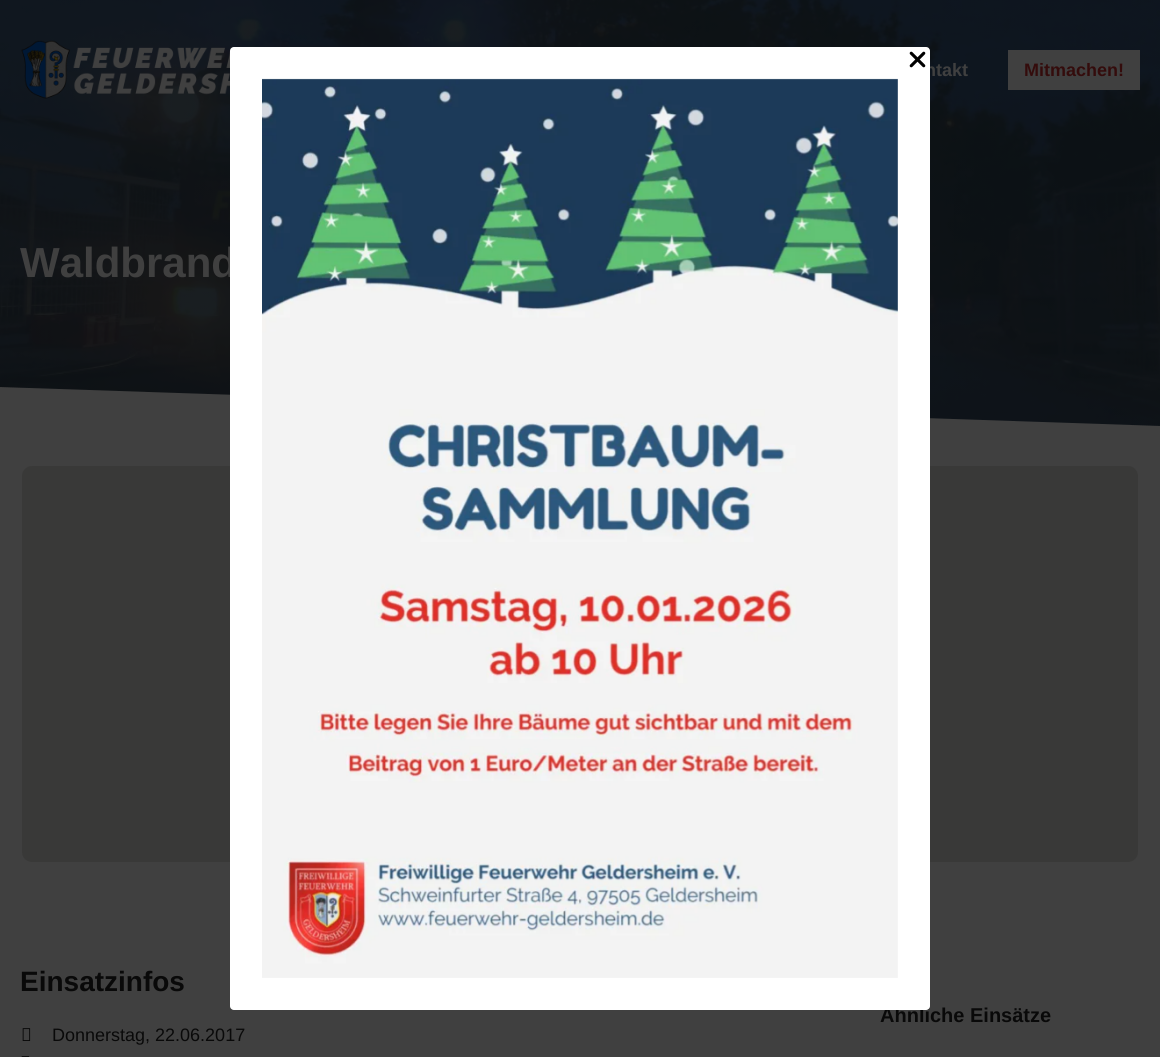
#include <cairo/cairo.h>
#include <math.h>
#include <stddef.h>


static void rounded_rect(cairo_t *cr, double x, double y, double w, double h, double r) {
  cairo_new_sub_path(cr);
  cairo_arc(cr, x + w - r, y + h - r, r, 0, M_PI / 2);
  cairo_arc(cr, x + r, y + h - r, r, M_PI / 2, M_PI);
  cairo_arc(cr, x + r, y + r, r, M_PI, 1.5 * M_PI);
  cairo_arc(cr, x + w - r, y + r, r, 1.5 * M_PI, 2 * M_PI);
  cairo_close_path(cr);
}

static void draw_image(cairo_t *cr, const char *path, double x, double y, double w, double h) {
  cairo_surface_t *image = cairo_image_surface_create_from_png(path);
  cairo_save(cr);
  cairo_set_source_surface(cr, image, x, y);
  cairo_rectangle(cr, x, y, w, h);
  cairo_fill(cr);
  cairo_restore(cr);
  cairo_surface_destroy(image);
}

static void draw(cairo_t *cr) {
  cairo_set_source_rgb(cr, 64 / 255.0, 64 / 255.0, 64 / 255.0);
  cairo_paint(cr);
  draw_image(cr, "images/4.png", 0, 0, 1160, 426);
  draw_image(cr, "images/3.png", 21, 40, 213, 59);
  cairo_set_source_rgb(cr, 64 / 255.0, 64 / 255.0, 64 / 255.0);
  cairo_rectangle(cr, 1008, 50, 132, 40);
  cairo_fill(cr);
  cairo_new_path(cr);
  cairo_move_to(cr, 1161, 427);
  cairo_line_to(cr, -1, 427);
  cairo_line_to(cr, -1, 387);
  cairo_line_to(cr, 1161, 426);
  cairo_close_path(cr);
  cairo_fill(cr);
  cairo_set_source_rgb(cr, 57 / 255.0, 57 / 255.0, 56 / 255.0);
  rounded_rect(cr, 22, 466, 1116, 396, 10);
  cairo_fill(cr);
  draw_image(cr, "images/5.png", 22, 1028, 9, 13);
  draw_image(cr, "images/6.png", 21, 1056, 9, 1);
  cairo_select_font_face(cr, "Liberation Sans", CAIRO_FONT_SLANT_NORMAL, CAIRO_FONT_WEIGHT_BOLD);
  cairo_set_font_size(cr, 18);
  cairo_set_source_rgb(cr, 64 / 255.0, 64 / 255.0, 64 / 255.0);
  cairo_move_to(cr, 925, 76);
  cairo_show_text(cr, "ntakt");
  cairo_set_source_rgb(cr, 52 / 255.0, 12 / 255.0, 12 / 255.0);
  cairo_move_to(cr, 1024, 76);
  cairo_show_text(cr, "Mitmachen!");
  cairo_set_font_size(cr, 42);
  cairo_set_source_rgb(cr, 64 / 255.0, 64 / 255.0, 64 / 255.0);
  cairo_move_to(cr, 20, 277);
  cairo_show_text(cr, "Waldbrand");
  cairo_set_font_size(cr, 28);
  cairo_set_source_rgb(cr, 9 / 255.0, 9 / 255.0, 9 / 255.0);
  cairo_move_to(cr, 20, 991);
  cairo_show_text(cr, "Einsatzinfos");
  cairo_select_font_face(cr, "Liberation Sans", CAIRO_FONT_SLANT_NORMAL, CAIRO_FONT_WEIGHT_NORMAL);
  cairo_set_font_size(cr, 18);
  cairo_move_to(cr, 52, 1041);
  cairo_show_text(cr, "Donnerstag, 22.06.2017");
  cairo_select_font_face(cr, "Liberation Sans", CAIRO_FONT_SLANT_NORMAL, CAIRO_FONT_WEIGHT_BOLD);
  cairo_set_font_size(cr, 20);
  cairo_move_to(cr, 880, 1022);
  cairo_show_text(cr, "Ähnliche Einsätze");
  cairo_set_source_rgb(cr, 1, 1, 1);
  rounded_rect(cr, 230, 47, 700, 963, 4);
  cairo_fill(cr);
  draw_image(cr, "images/2.png", 909, 51, 17, 17);
  draw_image(cr, "images/1.png", 262, 78, 636, 900);
}

int main(void) {
  cairo_surface_t *surface = cairo_image_surface_create(CAIRO_FORMAT_RGB24, 1160, 1057);
  cairo_t *cr = cairo_create(surface);
  cairo_font_options_t *options = cairo_font_options_create();
  cairo_font_options_set_hint_metrics(options, CAIRO_HINT_METRICS_OFF);
  cairo_font_options_set_hint_style(options, CAIRO_HINT_STYLE_NONE);
  cairo_set_font_options(cr, options);
  cairo_set_miter_limit(cr, 4);
  draw(cr);
  cairo_surface_write_to_png(surface, "out.png");
  cairo_font_options_destroy(options);
  cairo_destroy(cr);
  cairo_surface_destroy(surface);
  return 0;
}
